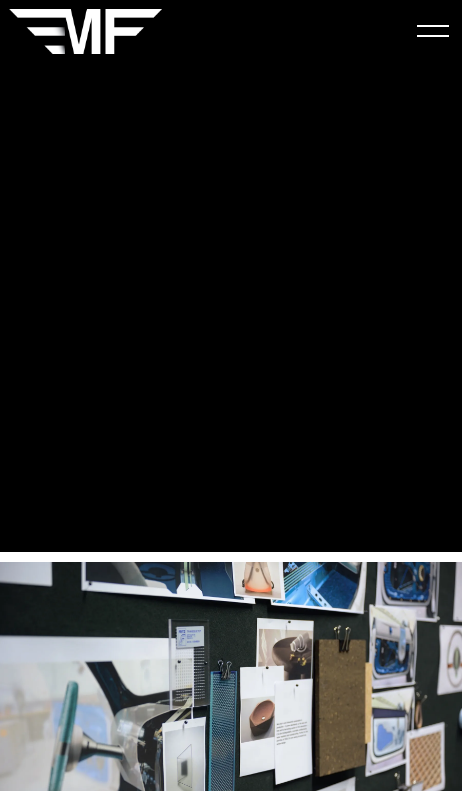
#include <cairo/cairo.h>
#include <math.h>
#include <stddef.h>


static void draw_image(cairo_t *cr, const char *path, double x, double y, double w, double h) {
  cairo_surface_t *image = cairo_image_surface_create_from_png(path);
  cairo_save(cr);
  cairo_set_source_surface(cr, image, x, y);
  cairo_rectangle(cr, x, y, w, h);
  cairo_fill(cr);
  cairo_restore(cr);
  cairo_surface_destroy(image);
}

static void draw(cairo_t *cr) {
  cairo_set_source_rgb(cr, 1, 1, 1);
  cairo_paint(cr);
  cairo_set_source_rgb(cr, 0, 0, 0);
  cairo_rectangle(cr, 0, 0, 462, 552);
  cairo_fill(cr);
  draw_image(cr, "images/1.png", 9, 9, 153, 45);
  cairo_set_source_rgb(cr, 1, 1, 1);
  cairo_rectangle(cr, 417, 25, 32, 2);
  cairo_fill(cr);
  cairo_rectangle(cr, 417, 35, 32, 2);
  cairo_fill(cr);
  draw_image(cr, "images/2.png", 0, 562, 462, 229);
}

int main(void) {
  cairo_surface_t *surface = cairo_image_surface_create(CAIRO_FORMAT_RGB24, 462, 791);
  cairo_t *cr = cairo_create(surface);
  cairo_font_options_t *options = cairo_font_options_create();
  cairo_font_options_set_hint_metrics(options, CAIRO_HINT_METRICS_OFF);
  cairo_font_options_set_hint_style(options, CAIRO_HINT_STYLE_NONE);
  cairo_set_font_options(cr, options);
  cairo_set_miter_limit(cr, 4);
  draw(cr);
  cairo_surface_write_to_png(surface, "out.png");
  cairo_font_options_destroy(options);
  cairo_destroy(cr);
  cairo_surface_destroy(surface);
  return 0;
}
